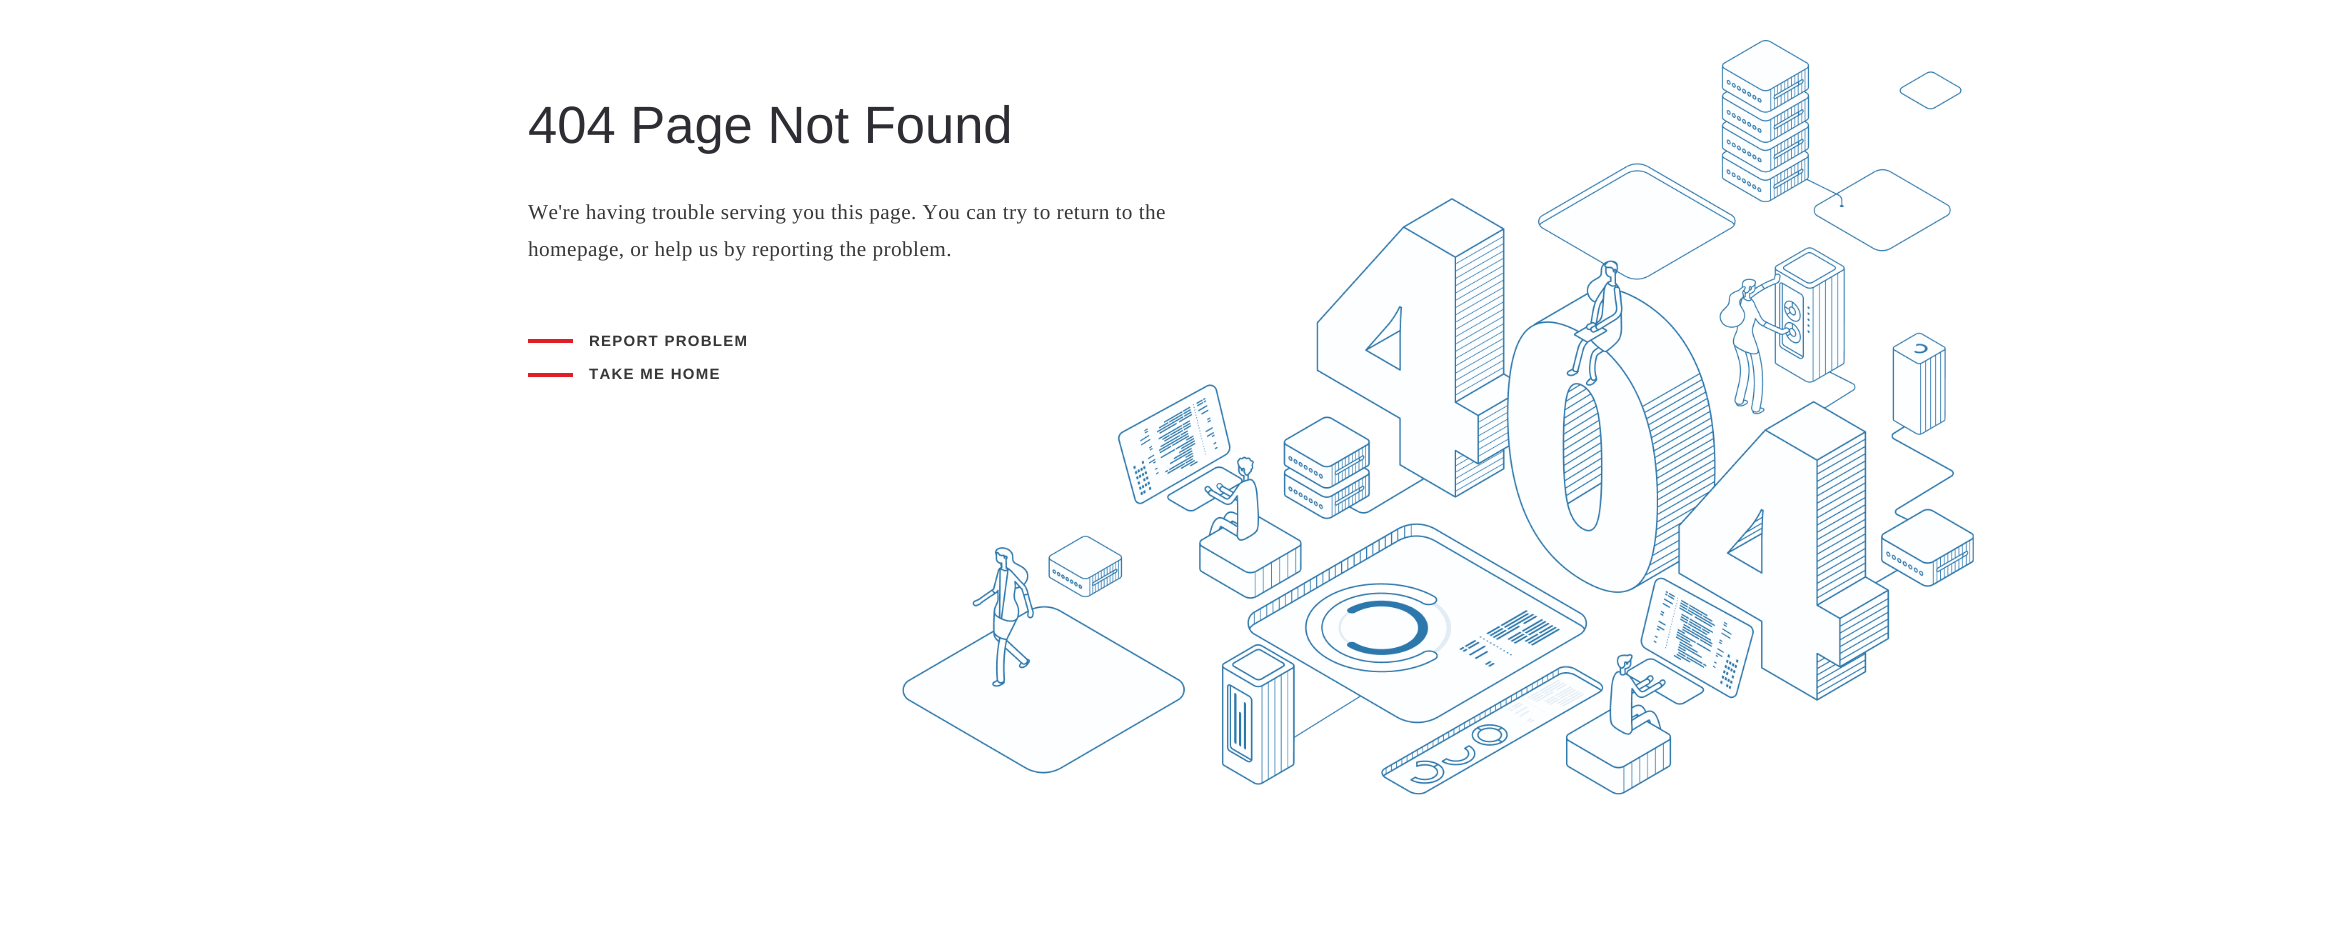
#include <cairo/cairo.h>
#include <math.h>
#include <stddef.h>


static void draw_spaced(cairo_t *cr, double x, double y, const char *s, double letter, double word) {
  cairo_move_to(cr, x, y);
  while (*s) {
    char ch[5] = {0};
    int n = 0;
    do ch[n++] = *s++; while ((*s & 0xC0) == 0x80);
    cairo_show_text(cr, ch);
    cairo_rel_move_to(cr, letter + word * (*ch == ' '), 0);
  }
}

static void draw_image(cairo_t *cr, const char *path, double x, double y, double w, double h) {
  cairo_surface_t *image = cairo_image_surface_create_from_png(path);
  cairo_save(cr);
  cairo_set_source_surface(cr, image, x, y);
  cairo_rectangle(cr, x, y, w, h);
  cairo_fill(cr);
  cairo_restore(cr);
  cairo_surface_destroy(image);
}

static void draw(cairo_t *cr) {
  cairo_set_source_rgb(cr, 1, 1, 1);
  cairo_paint(cr);
  draw_image(cr, "images/1.png", 902, 40, 1072, 755);
  cairo_set_source_rgb(cr, 223 / 255.0, 30 / 255.0, 38 / 255.0);
  cairo_rectangle(cr, 528, 339, 45, 4);
  cairo_fill(cr);
  cairo_rectangle(cr, 528, 373, 45, 4);
  cairo_fill(cr);
  cairo_select_font_face(cr, "Liberation Sans", CAIRO_FONT_SLANT_NORMAL, CAIRO_FONT_WEIGHT_NORMAL);
  cairo_set_font_size(cr, 52.5);
  cairo_set_source_rgb(cr, 45 / 255.0, 45 / 255.0, 51 / 255.0);
  cairo_move_to(cr, 528, 143);
  cairo_show_text(cr, "404 Page Not Found");
  cairo_select_font_face(cr, "Liberation Serif", CAIRO_FONT_SLANT_NORMAL, CAIRO_FONT_WEIGHT_NORMAL);
  cairo_set_font_size(cr, 21.25);
  cairo_set_source_rgb(cr, 55 / 255.0, 55 / 255.0, 55 / 255.0);
  draw_spaced(cr, 528, 219, "We're having trouble serving you this page. You can try to return to the", 0.43, 0);
  draw_spaced(cr, 528, 256, "homepage, or help us by reporting the problem.", 0.43, 0);
  cairo_select_font_face(cr, "Liberation Sans", CAIRO_FONT_SLANT_NORMAL, CAIRO_FONT_WEIGHT_BOLD);
  cairo_set_font_size(cr, 15);
  draw_spaced(cr, 589, 346, "REPORT PROBLEM", 1.25, 0);
  draw_spaced(cr, 589, 379, "TAKE ME HOME", 1.25, 0);
}

int main(void) {
  cairo_surface_t *surface = cairo_image_surface_create(CAIRO_FORMAT_RGB24, 2347, 934);
  cairo_t *cr = cairo_create(surface);
  cairo_font_options_t *options = cairo_font_options_create();
  cairo_font_options_set_hint_metrics(options, CAIRO_HINT_METRICS_OFF);
  cairo_font_options_set_hint_style(options, CAIRO_HINT_STYLE_NONE);
  cairo_set_font_options(cr, options);
  cairo_set_miter_limit(cr, 4);
  draw(cr);
  cairo_surface_write_to_png(surface, "out.png");
  cairo_font_options_destroy(options);
  cairo_destroy(cr);
  cairo_surface_destroy(surface);
  return 0;
}
